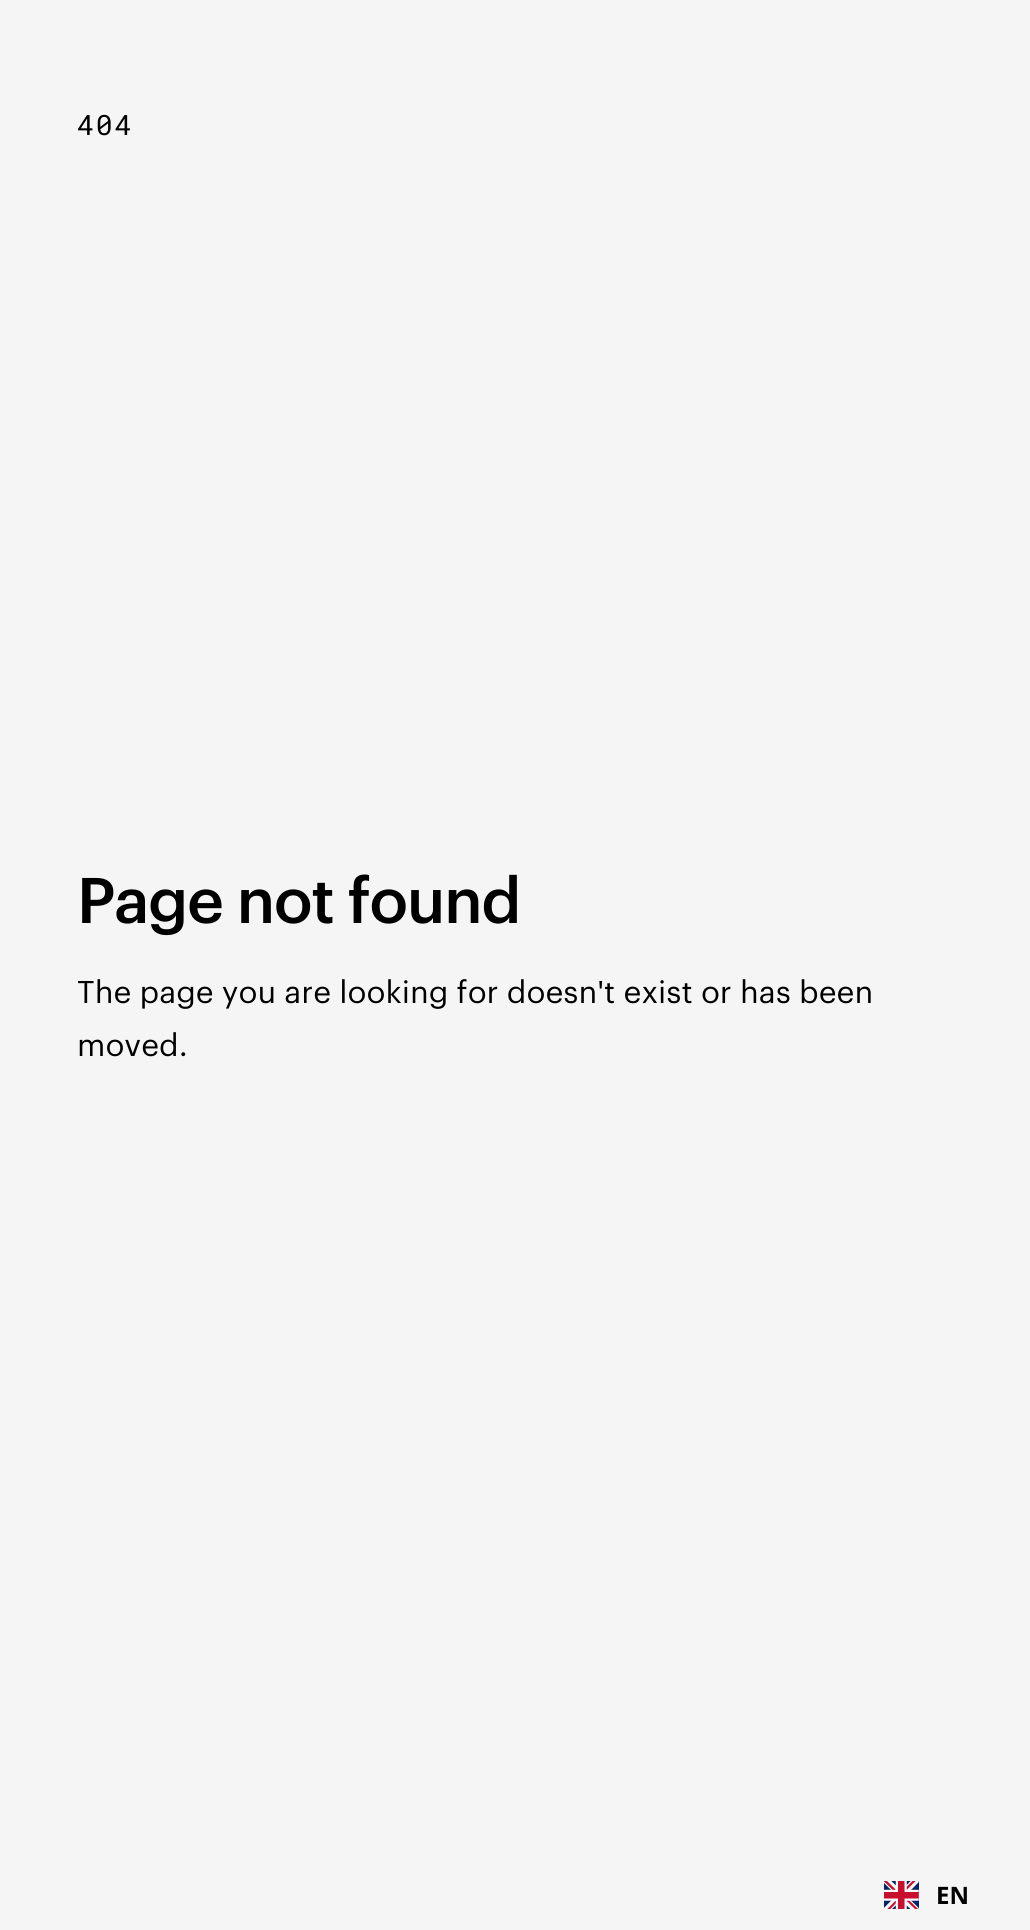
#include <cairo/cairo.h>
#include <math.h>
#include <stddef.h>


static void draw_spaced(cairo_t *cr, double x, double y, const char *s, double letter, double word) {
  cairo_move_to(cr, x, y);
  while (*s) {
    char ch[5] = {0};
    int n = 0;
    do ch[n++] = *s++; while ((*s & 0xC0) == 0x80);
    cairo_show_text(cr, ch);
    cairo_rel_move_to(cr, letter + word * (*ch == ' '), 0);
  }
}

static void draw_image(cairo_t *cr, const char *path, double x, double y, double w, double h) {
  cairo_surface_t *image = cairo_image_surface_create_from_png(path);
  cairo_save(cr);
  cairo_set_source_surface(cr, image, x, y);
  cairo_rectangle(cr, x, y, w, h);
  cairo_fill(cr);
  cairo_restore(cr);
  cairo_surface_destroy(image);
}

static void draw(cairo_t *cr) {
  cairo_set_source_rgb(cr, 245 / 255.0, 245 / 255.0, 245 / 255.0);
  cairo_paint(cr);
  draw_image(cr, "images/1.png", 884, 1881, 35, 28);
  cairo_select_font_face(cr, "Roboto Mono", CAIRO_FONT_SLANT_NORMAL, CAIRO_FONT_WEIGHT_NORMAL);
  cairo_set_font_size(cr, 28);
  cairo_set_source_rgb(cr, 0, 0, 0);
  draw_spaced(cr, 77, 135, "404", 2, 0);
  cairo_select_font_face(cr, "Graphik Medium", CAIRO_FONT_SLANT_NORMAL, CAIRO_FONT_WEIGHT_NORMAL);
  cairo_set_font_size(cr, 63);
  draw_spaced(cr, 77, 923, "Page not found", -1.25, 0);
  cairo_select_font_face(cr, "Graphik", CAIRO_FONT_SLANT_NORMAL, CAIRO_FONT_WEIGHT_NORMAL);
  cairo_set_font_size(cr, 30.8);
  cairo_move_to(cr, 77, 1003);
  cairo_show_text(cr, "The page you are looking for doesn't exist or has been");
  cairo_move_to(cr, 77, 1056);
  cairo_show_text(cr, "moved.");
  cairo_select_font_face(cr, "Noto Sans", CAIRO_FONT_SLANT_NORMAL, CAIRO_FONT_WEIGHT_BOLD);
  cairo_set_font_size(cr, 24);
  cairo_move_to(cr, 936, 1904);
  cairo_show_text(cr, "EN");
}

int main(void) {
  cairo_surface_t *surface = cairo_image_surface_create(CAIRO_FORMAT_RGB24, 1030, 1930);
  cairo_t *cr = cairo_create(surface);
  cairo_font_options_t *options = cairo_font_options_create();
  cairo_font_options_set_hint_metrics(options, CAIRO_HINT_METRICS_OFF);
  cairo_font_options_set_hint_style(options, CAIRO_HINT_STYLE_NONE);
  cairo_set_font_options(cr, options);
  cairo_set_miter_limit(cr, 4);
  draw(cr);
  cairo_surface_write_to_png(surface, "out.png");
  cairo_font_options_destroy(options);
  cairo_destroy(cr);
  cairo_surface_destroy(surface);
  return 0;
}
